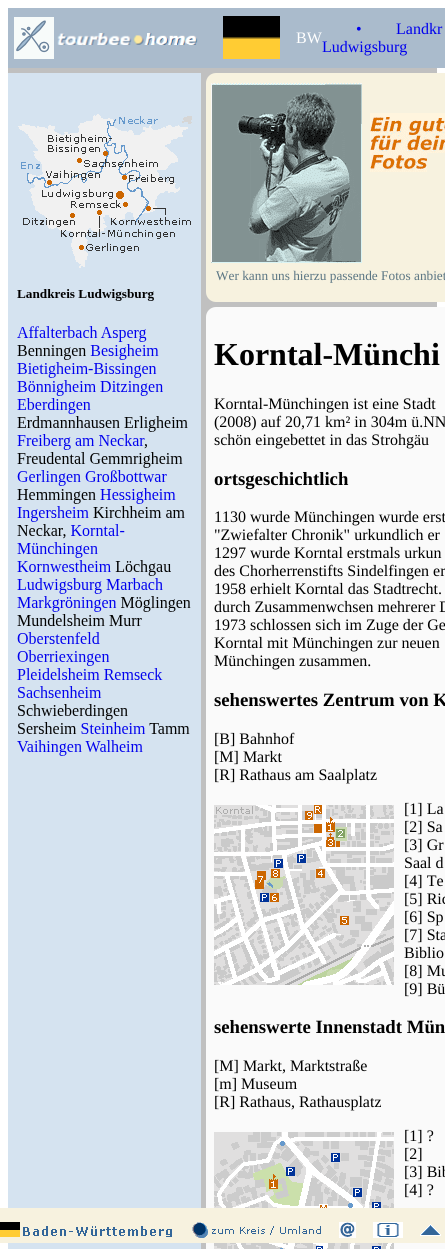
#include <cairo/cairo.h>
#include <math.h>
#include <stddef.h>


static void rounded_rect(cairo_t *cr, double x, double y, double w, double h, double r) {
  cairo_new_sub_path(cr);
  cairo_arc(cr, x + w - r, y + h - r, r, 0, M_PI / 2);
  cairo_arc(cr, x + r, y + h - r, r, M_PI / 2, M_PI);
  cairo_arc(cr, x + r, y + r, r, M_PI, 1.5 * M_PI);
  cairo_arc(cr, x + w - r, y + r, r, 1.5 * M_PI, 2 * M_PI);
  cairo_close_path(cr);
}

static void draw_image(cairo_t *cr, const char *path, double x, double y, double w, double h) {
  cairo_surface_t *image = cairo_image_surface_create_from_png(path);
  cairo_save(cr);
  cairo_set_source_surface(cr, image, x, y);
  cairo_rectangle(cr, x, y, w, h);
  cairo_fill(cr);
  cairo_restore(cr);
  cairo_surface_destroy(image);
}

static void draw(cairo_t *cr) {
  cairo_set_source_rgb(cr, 1, 1, 1);
  cairo_paint(cr);
  cairo_set_source_rgb(cr, 192 / 255.0, 192 / 255.0, 192 / 255.0);
  cairo_rectangle(cr, 8, 68, 429, 1181);
  cairo_fill(cr);
  cairo_set_source_rgb(cr, 170 / 255.0, 187 / 255.0, 204 / 255.0);
  cairo_rectangle(cr, 8, 8, 437, 60);
  cairo_fill(cr);
  draw_image(cr, "images/1.png", 14, 17, 184, 42);
  draw_image(cr, "images/2.png", 223, 16, 57, 43);
  cairo_set_source_rgb(cr, 213 / 255.0, 227 / 255.0, 240 / 255.0);
  cairo_rectangle(cr, 8, 73, 193, 1176);
  cairo_fill(cr);
  draw_image(cr, "images/3.png", 17, 114, 175, 642);
  cairo_set_source_rgb(cr, 247 / 255.0, 242 / 255.0, 223 / 255.0);
  rounded_rect(cr, 206, 73, 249, 229, 10);
  cairo_fill(cr);
  draw_image(cr, "images/4.png", 211, 83, 234, 180);
  cairo_set_source_rgb(cr, 250 / 255.0, 250 / 255.0, 250 / 255.0);
  rounded_rect(cr, 206, 307, 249, 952, 10);
  cairo_fill(cr);
  draw_image(cr, "images/5.png", 214, 805, 180, 180);
  draw_image(cr, "images/6.png", 214, 1132, 180, 117);
  cairo_set_source_rgb(cr, 247 / 255.0, 242 / 255.0, 223 / 255.0);
  cairo_rectangle(cr, 0, 1208, 445, 35);
  cairo_fill(cr);
  draw_image(cr, "images/7.png", 0, 1222, 172, 15);
  draw_image(cr, "images/8.png", 192, 1222, 129, 16);
  draw_image(cr, "images/9.png", 339, 1222, 17, 16);
  draw_image(cr, "images/10.png", 373, 1222, 30, 16);
  draw_image(cr, "images/11.png", 420, 1224, 21, 12);
  cairo_select_font_face(cr, "Liberation Serif", CAIRO_FONT_SLANT_NORMAL, CAIRO_FONT_WEIGHT_NORMAL);
  cairo_set_font_size(cr, 16);
  cairo_set_source_rgb(cr, 1, 1, 1);
  cairo_move_to(cr, 296, 43);
  cairo_show_text(cr, "BW");
  cairo_set_source_rgb(cr, 0, 0, 238 / 255.0);
  cairo_move_to(cr, 356, 34);
  cairo_show_text(cr, "•");
  cairo_move_to(cr, 396, 34);
  cairo_show_text(cr, "Landkr");
  cairo_move_to(cr, 322, 52);
  cairo_show_text(cr, "Ludwigsburg");
  cairo_set_font_size(cr, 13.3);
  cairo_set_source_rgb(cr, 90 / 255.0, 117 / 255.0, 131 / 255.0);
  cairo_move_to(cr, 216, 280);
  cairo_show_text(cr, "Wer kann uns hierzu passende Fotos anbiet");
  cairo_select_font_face(cr, "Liberation Serif", CAIRO_FONT_SLANT_NORMAL, CAIRO_FONT_WEIGHT_BOLD);
  cairo_set_font_size(cr, 32);
  cairo_set_source_rgb(cr, 0, 0, 0);
  cairo_move_to(cr, 214, 365);
  cairo_show_text(cr, "Korntal-Münchi");
  cairo_select_font_face(cr, "Liberation Serif", CAIRO_FONT_SLANT_NORMAL, CAIRO_FONT_WEIGHT_NORMAL);
  cairo_set_font_size(cr, 16);
  cairo_move_to(cr, 214, 409);
  cairo_show_text(cr, "Korntal-Münchingen ist eine Stadt");
  cairo_move_to(cr, 214, 427);
  cairo_show_text(cr, "(2008) auf 20,71 km² in 304m ü.NN");
  cairo_move_to(cr, 214, 445);
  cairo_show_text(cr, "schön eingebettet in das Strohgäu");
  cairo_select_font_face(cr, "Liberation Serif", CAIRO_FONT_SLANT_NORMAL, CAIRO_FONT_WEIGHT_BOLD);
  cairo_set_font_size(cr, 18.75);
  cairo_move_to(cr, 214, 485);
  cairo_show_text(cr, "ortsgeschichtlich");
  cairo_select_font_face(cr, "Liberation Serif", CAIRO_FONT_SLANT_NORMAL, CAIRO_FONT_WEIGHT_NORMAL);
  cairo_set_font_size(cr, 16);
  cairo_move_to(cr, 214, 522);
  cairo_show_text(cr, "1130 wurde Münchingen wurde erst");
  cairo_move_to(cr, 214, 540);
  cairo_show_text(cr, "\"Zwiefalter Chronik\" urkundlich er");
  cairo_move_to(cr, 214, 558);
  cairo_show_text(cr, "1297 wurde Korntal erstmals urkun");
  cairo_move_to(cr, 214, 576);
  cairo_show_text(cr, "des Chorherrenstifts Sindelfingen er");
  cairo_move_to(cr, 214, 594);
  cairo_show_text(cr, "1958 erhielt Korntal das Stadtrecht.");
  cairo_move_to(cr, 214, 612);
  cairo_show_text(cr, "durch Zusammenwchsen mehrerer D");
  cairo_move_to(cr, 214, 630);
  cairo_show_text(cr, "1973 schlossen sich im Zuge der Ge");
  cairo_move_to(cr, 214, 648);
  cairo_show_text(cr, "Korntal mit Münchingen zur neuen");
  cairo_move_to(cr, 214, 666);
  cairo_show_text(cr, "Münchingen zusammen.");
  cairo_select_font_face(cr, "Liberation Serif", CAIRO_FONT_SLANT_NORMAL, CAIRO_FONT_WEIGHT_BOLD);
  cairo_set_font_size(cr, 18.75);
  cairo_move_to(cr, 214, 706);
  cairo_show_text(cr, "sehenswertes Zentrum von K");
  cairo_select_font_face(cr, "Liberation Serif", CAIRO_FONT_SLANT_NORMAL, CAIRO_FONT_WEIGHT_NORMAL);
  cairo_set_font_size(cr, 16);
  cairo_move_to(cr, 214, 744);
  cairo_show_text(cr, "[B] Bahnhof");
  cairo_move_to(cr, 214, 762);
  cairo_show_text(cr, "[M] Markt");
  cairo_move_to(cr, 214, 780);
  cairo_show_text(cr, "[R] Rathaus am Saalplatz");
  cairo_move_to(cr, 404, 814);
  cairo_show_text(cr, "[1] La");
  cairo_move_to(cr, 404, 832);
  cairo_show_text(cr, "[2] Sa");
  cairo_move_to(cr, 404, 850);
  cairo_show_text(cr, "[3] Gr");
  cairo_move_to(cr, 404, 868);
  cairo_show_text(cr, "Saal d");
  cairo_move_to(cr, 404, 886);
  cairo_show_text(cr, "[4] Te");
  cairo_move_to(cr, 404, 904);
  cairo_show_text(cr, "[5] Ric");
  cairo_move_to(cr, 404, 922);
  cairo_show_text(cr, "[6] Sp");
  cairo_move_to(cr, 404, 940);
  cairo_show_text(cr, "[7] Sta");
  cairo_move_to(cr, 404, 958);
  cairo_show_text(cr, "Biblio");
  cairo_move_to(cr, 404, 976);
  cairo_show_text(cr, "[8] Mu");
  cairo_move_to(cr, 404, 994);
  cairo_show_text(cr, "[9] Bü");
  cairo_select_font_face(cr, "Liberation Serif", CAIRO_FONT_SLANT_NORMAL, CAIRO_FONT_WEIGHT_BOLD);
  cairo_set_font_size(cr, 18.75);
  cairo_move_to(cr, 214, 1033);
  cairo_show_text(cr, "sehenswerte Innenstadt Mün");
  cairo_select_font_face(cr, "Liberation Serif", CAIRO_FONT_SLANT_NORMAL, CAIRO_FONT_WEIGHT_NORMAL);
  cairo_set_font_size(cr, 16);
  cairo_move_to(cr, 214, 1071);
  cairo_show_text(cr, "[M] Markt, Marktstraße");
  cairo_move_to(cr, 214, 1089);
  cairo_show_text(cr, "[m] Museum");
  cairo_move_to(cr, 214, 1107);
  cairo_show_text(cr, "[R] Rathaus, Rathausplatz");
  cairo_move_to(cr, 404, 1141);
  cairo_show_text(cr, "[1] ?");
  cairo_move_to(cr, 404, 1159);
  cairo_show_text(cr, "[2]");
  cairo_move_to(cr, 404, 1177);
  cairo_show_text(cr, "[3] Bib");
  cairo_move_to(cr, 404, 1195);
  cairo_show_text(cr, "[4] ?");
}

int main(void) {
  cairo_surface_t *surface = cairo_image_surface_create(CAIRO_FORMAT_RGB24, 445, 1249);
  cairo_t *cr = cairo_create(surface);
  cairo_font_options_t *options = cairo_font_options_create();
  cairo_font_options_set_hint_metrics(options, CAIRO_HINT_METRICS_OFF);
  cairo_font_options_set_hint_style(options, CAIRO_HINT_STYLE_NONE);
  cairo_set_font_options(cr, options);
  cairo_set_miter_limit(cr, 4);
  draw(cr);
  cairo_surface_write_to_png(surface, "out.png");
  cairo_font_options_destroy(options);
  cairo_destroy(cr);
  cairo_surface_destroy(surface);
  return 0;
}
